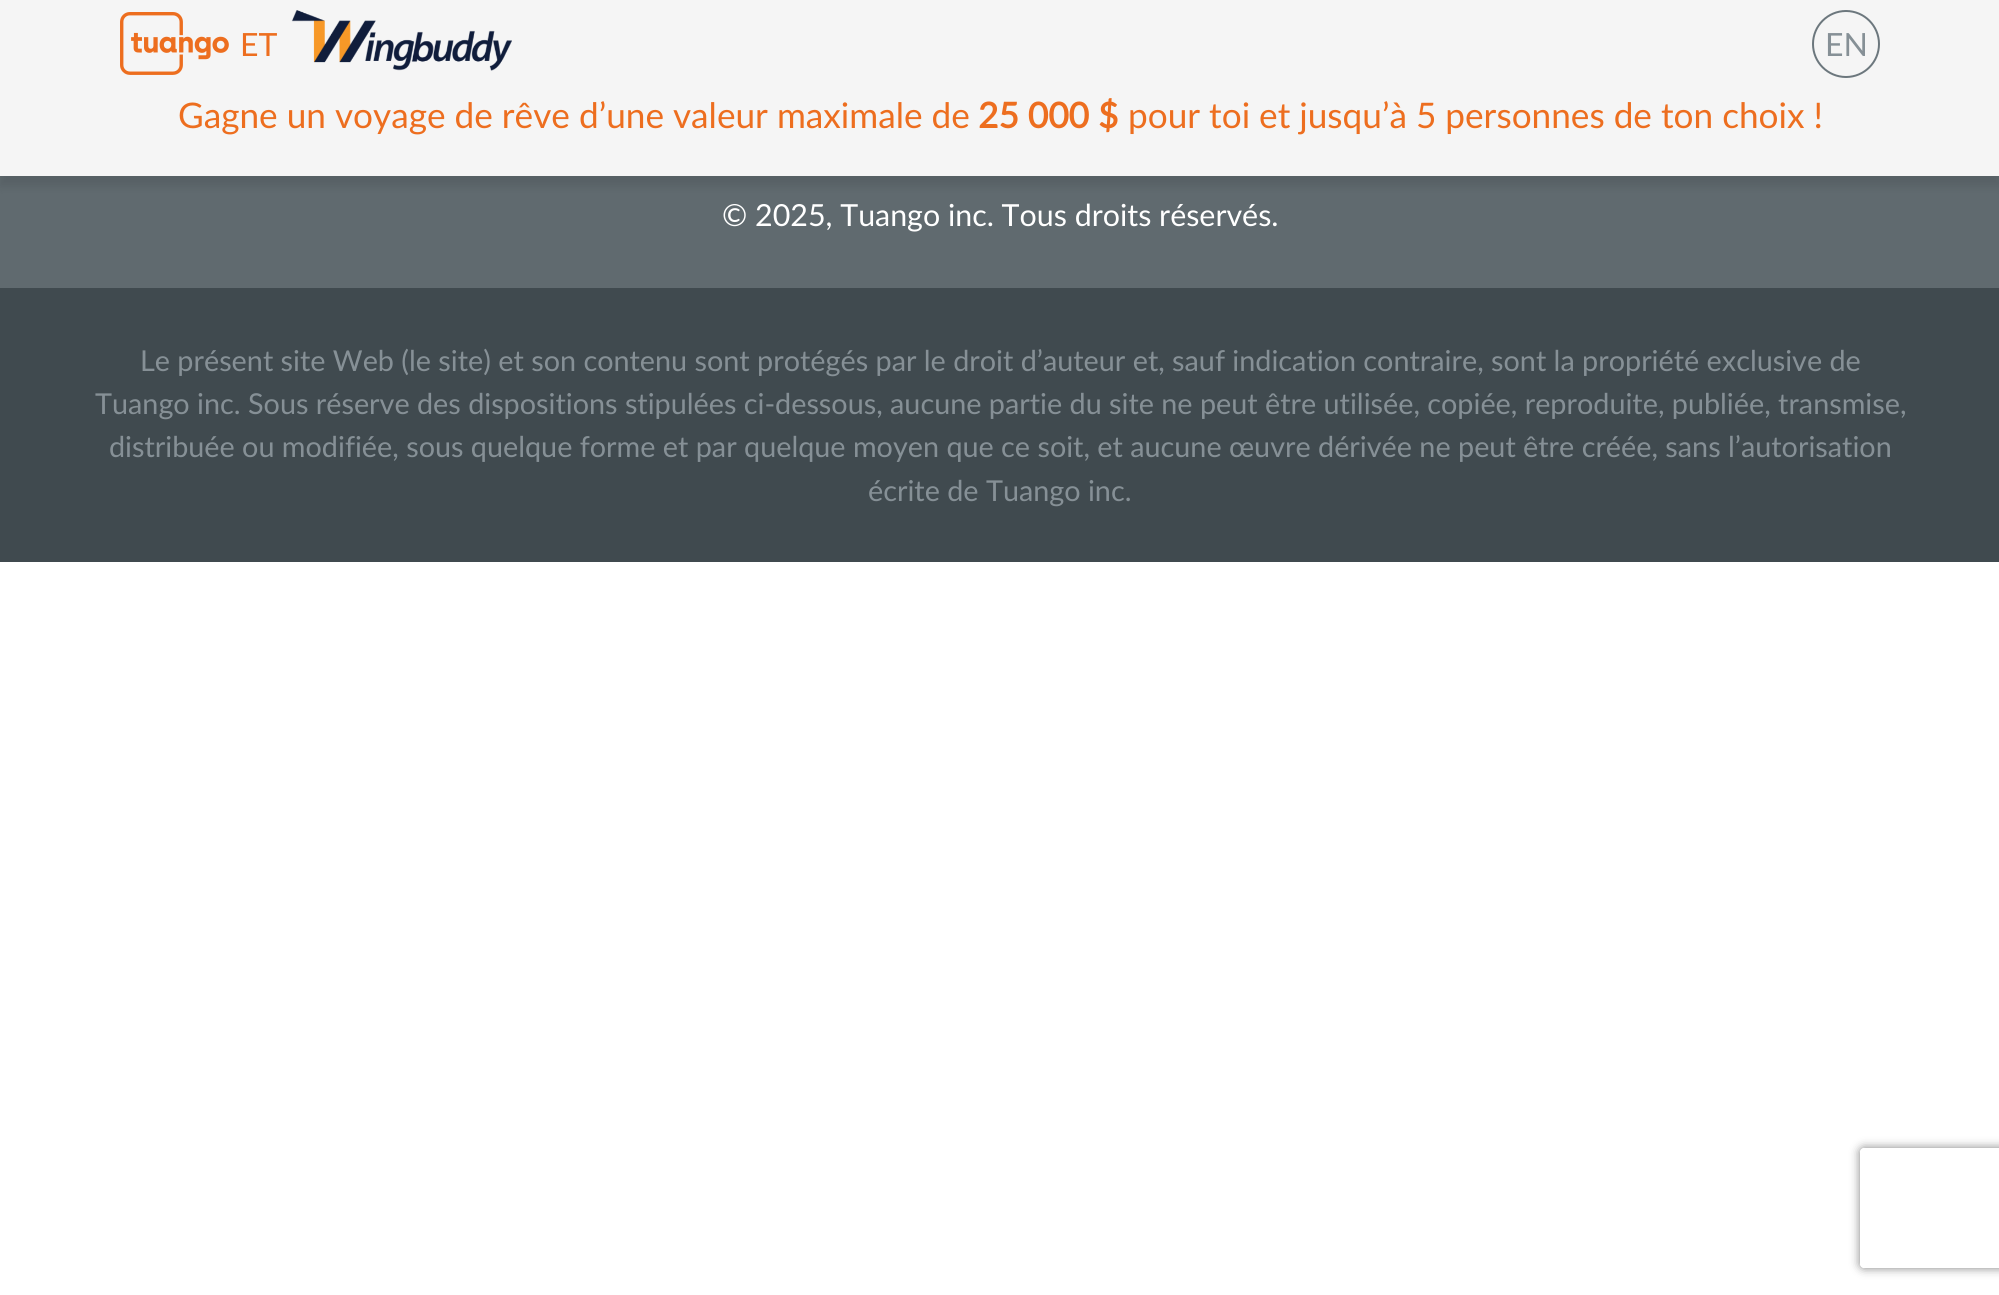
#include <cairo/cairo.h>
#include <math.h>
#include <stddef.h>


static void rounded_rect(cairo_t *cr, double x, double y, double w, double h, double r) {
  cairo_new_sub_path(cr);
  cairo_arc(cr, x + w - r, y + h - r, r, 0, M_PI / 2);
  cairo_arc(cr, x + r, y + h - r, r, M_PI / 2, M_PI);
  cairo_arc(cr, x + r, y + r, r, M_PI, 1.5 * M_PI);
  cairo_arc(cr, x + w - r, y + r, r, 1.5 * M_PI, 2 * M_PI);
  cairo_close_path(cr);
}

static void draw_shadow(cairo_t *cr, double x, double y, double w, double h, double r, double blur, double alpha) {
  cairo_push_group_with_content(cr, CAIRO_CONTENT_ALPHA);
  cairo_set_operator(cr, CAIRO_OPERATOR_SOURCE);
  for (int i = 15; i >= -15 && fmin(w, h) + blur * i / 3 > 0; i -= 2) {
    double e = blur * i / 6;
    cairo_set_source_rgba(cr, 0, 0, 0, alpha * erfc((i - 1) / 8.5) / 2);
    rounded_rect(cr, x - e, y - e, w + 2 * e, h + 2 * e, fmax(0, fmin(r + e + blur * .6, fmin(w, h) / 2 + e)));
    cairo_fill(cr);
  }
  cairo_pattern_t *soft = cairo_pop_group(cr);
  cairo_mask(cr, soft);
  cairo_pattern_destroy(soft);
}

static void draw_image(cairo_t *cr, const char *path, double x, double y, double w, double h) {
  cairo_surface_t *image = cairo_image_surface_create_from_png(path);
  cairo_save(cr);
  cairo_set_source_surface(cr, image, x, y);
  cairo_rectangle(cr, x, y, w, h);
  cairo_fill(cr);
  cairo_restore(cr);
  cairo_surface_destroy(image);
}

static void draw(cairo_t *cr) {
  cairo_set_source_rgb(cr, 1, 1, 1);
  cairo_paint(cr);
  cairo_set_source_rgb(cr, 96 / 255.0, 106 / 255.0, 111 / 255.0);
  cairo_rectangle(cr, 0, 176, 1999, 112);
  cairo_fill(cr);
  cairo_set_source_rgb(cr, 0, 0, 0);
  draw_shadow(cr, 0, 10, 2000, 176, 0, 5, 0.1);
  cairo_set_source_rgb(cr, 245 / 255.0, 245 / 255.0, 245 / 255.0);
  cairo_rectangle(cr, 0, 0, 1999, 176);
  cairo_fill(cr);
  draw_image(cr, "images/1.png", 120, 12, 109, 63);
  draw_image(cr, "images/2.png", 291, 10, 221, 61);
  cairo_arc(cr, 1846, 44, 33, 0, 2 * M_PI);
  cairo_set_source_rgb(cr, 108 / 255.0, 119 / 255.0, 125 / 255.0);
  cairo_stroke(cr);
  cairo_set_source_rgb(cr, 64 / 255.0, 74 / 255.0, 79 / 255.0);
  cairo_rectangle(cr, 0, 288, 1999, 274);
  cairo_fill(cr);
  cairo_save(cr);
  cairo_set_fill_rule(cr, CAIRO_FILL_RULE_EVEN_ODD);
  cairo_new_path(cr);
  cairo_move_to(cr, 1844, 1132);
  cairo_line_to(cr, 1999, 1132);
  cairo_line_to(cr, 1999, 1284);
  cairo_line_to(cr, 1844, 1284);
  cairo_close_path(cr);
  cairo_move_to(cr, 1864, 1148);
  cairo_line_to(cr, 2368, 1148);
  cairo_curve_to(cr, 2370, 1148, 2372, 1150, 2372, 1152);
  cairo_line_to(cr, 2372, 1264);
  cairo_curve_to(cr, 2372, 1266, 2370, 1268, 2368, 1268);
  cairo_line_to(cr, 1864, 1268);
  cairo_curve_to(cr, 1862, 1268, 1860, 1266, 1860, 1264);
  cairo_line_to(cr, 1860, 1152);
  cairo_curve_to(cr, 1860, 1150, 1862, 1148, 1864, 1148);
  cairo_close_path(cr);
  cairo_clip(cr);
  cairo_set_source_rgb(cr, 128 / 255.0, 128 / 255.0, 128 / 255.0);
  draw_shadow(cr, 1860, 1148, 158, 120, 4, 5, 1);
  cairo_restore(cr);
  cairo_select_font_face(cr, "Lato", CAIRO_FONT_SLANT_NORMAL, CAIRO_FONT_WEIGHT_NORMAL);
  cairo_set_font_size(cr, 32);
  cairo_set_source_rgb(cr, 237 / 255.0, 110 / 255.0, 31 / 255.0);
  cairo_move_to(cr, 240, 56);
  cairo_show_text(cr, "ET");
  cairo_set_source_rgb(cr, 134 / 255.0, 144 / 255.0, 150 / 255.0);
  cairo_move_to(cr, 1825, 56);
  cairo_show_text(cr, "EN");
  cairo_set_font_size(cr, 35.2);
  cairo_set_source_rgb(cr, 237 / 255.0, 110 / 255.0, 31 / 255.0);
  cairo_move_to(cr, 178, 128);
  cairo_show_text(cr, "Gagne un voyage de rêve d’une valeur maximale de");
  cairo_select_font_face(cr, "Lato", CAIRO_FONT_SLANT_NORMAL, CAIRO_FONT_WEIGHT_BOLD);
  cairo_move_to(cr, 978, 128);
  cairo_show_text(cr, "25 000 $");
  cairo_select_font_face(cr, "Lato", CAIRO_FONT_SLANT_NORMAL, CAIRO_FONT_WEIGHT_NORMAL);
  cairo_move_to(cr, 1128, 128);
  cairo_show_text(cr, "pour toi et jusqu’à 5 personnes de ton choix !");
  cairo_set_font_size(cr, 30.4);
  cairo_set_source_rgb(cr, 1, 1, 1);
  cairo_move_to(cr, 722, 226);
  cairo_show_text(cr, "© 2025, Tuango inc. Tous droits réservés.");
  cairo_set_font_size(cr, 28.8);
  cairo_set_source_rgb(cr, 134 / 255.0, 144 / 255.0, 150 / 255.0);
  cairo_move_to(cr, 140, 371);
  cairo_show_text(cr, "Le présent site Web (le site) et son contenu sont protégés par le droit d’auteur et, sauf indication contraire, sont la propriété exclusive de");
  cairo_move_to(cr, 95, 414);
  cairo_show_text(cr, "Tuango inc. Sous réserve des dispositions stipulées ci-dessous, aucune partie du site ne peut être utilisée, copiée, reproduite, publiée, transmise,");
  cairo_move_to(cr, 109, 457);
  cairo_show_text(cr, "distribuée ou modifiée, sous quelque forme et par quelque moyen que ce soit, et aucune œuvre dérivée ne peut être créée, sans l’autorisation");
  cairo_move_to(cr, 868, 501);
  cairo_show_text(cr, "écrite de Tuango inc.");
}

int main(void) {
  cairo_surface_t *surface = cairo_image_surface_create(CAIRO_FORMAT_RGB24, 1999, 1295);
  cairo_t *cr = cairo_create(surface);
  cairo_font_options_t *options = cairo_font_options_create();
  cairo_font_options_set_hint_metrics(options, CAIRO_HINT_METRICS_OFF);
  cairo_font_options_set_hint_style(options, CAIRO_HINT_STYLE_NONE);
  cairo_set_font_options(cr, options);
  cairo_set_miter_limit(cr, 4);
  draw(cr);
  cairo_surface_write_to_png(surface, "out.png");
  cairo_font_options_destroy(options);
  cairo_destroy(cr);
  cairo_surface_destroy(surface);
  return 0;
}
